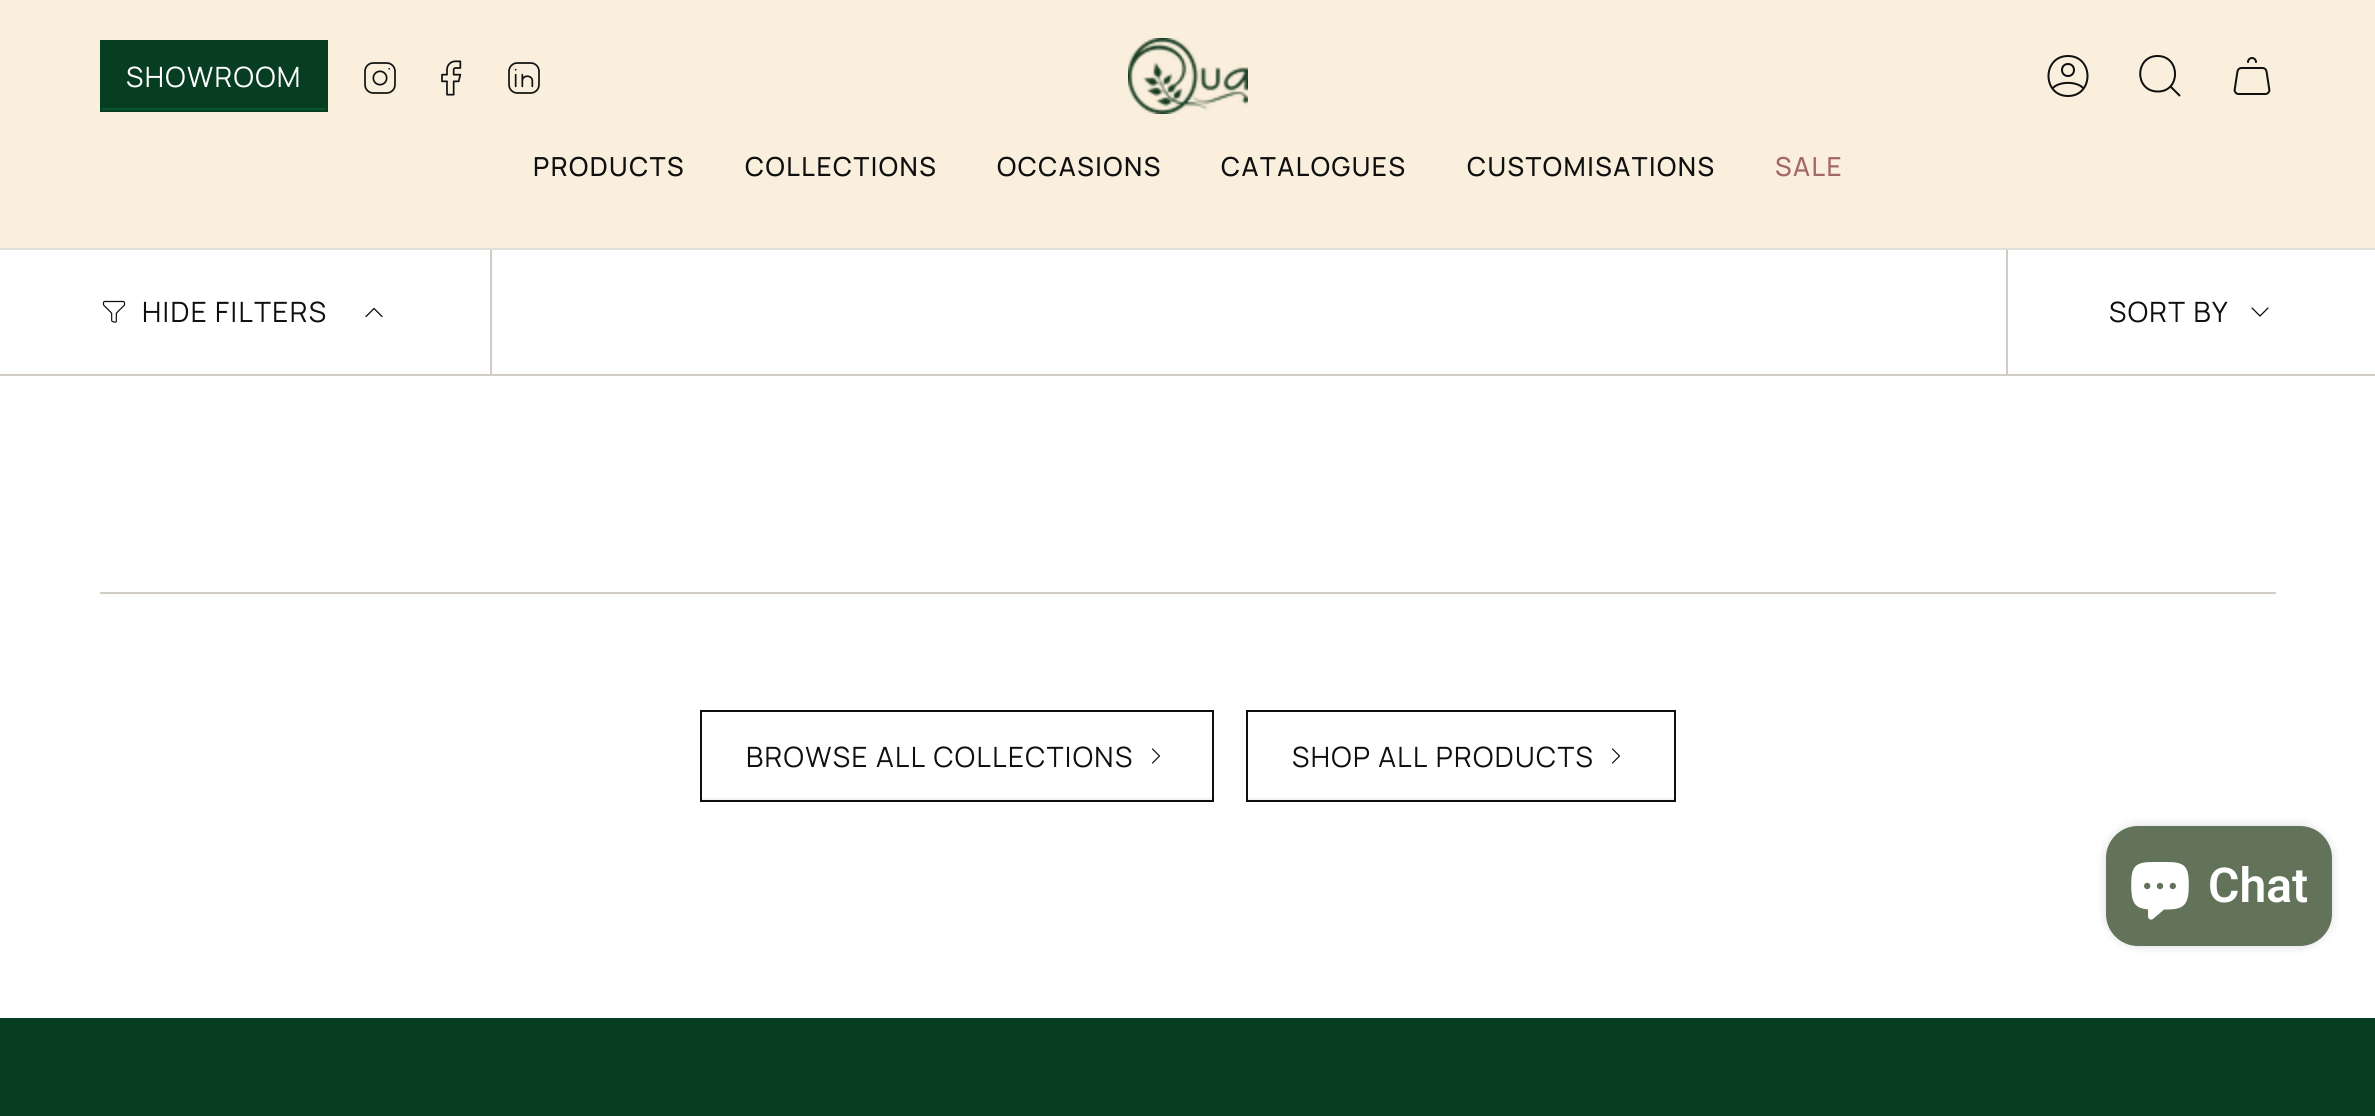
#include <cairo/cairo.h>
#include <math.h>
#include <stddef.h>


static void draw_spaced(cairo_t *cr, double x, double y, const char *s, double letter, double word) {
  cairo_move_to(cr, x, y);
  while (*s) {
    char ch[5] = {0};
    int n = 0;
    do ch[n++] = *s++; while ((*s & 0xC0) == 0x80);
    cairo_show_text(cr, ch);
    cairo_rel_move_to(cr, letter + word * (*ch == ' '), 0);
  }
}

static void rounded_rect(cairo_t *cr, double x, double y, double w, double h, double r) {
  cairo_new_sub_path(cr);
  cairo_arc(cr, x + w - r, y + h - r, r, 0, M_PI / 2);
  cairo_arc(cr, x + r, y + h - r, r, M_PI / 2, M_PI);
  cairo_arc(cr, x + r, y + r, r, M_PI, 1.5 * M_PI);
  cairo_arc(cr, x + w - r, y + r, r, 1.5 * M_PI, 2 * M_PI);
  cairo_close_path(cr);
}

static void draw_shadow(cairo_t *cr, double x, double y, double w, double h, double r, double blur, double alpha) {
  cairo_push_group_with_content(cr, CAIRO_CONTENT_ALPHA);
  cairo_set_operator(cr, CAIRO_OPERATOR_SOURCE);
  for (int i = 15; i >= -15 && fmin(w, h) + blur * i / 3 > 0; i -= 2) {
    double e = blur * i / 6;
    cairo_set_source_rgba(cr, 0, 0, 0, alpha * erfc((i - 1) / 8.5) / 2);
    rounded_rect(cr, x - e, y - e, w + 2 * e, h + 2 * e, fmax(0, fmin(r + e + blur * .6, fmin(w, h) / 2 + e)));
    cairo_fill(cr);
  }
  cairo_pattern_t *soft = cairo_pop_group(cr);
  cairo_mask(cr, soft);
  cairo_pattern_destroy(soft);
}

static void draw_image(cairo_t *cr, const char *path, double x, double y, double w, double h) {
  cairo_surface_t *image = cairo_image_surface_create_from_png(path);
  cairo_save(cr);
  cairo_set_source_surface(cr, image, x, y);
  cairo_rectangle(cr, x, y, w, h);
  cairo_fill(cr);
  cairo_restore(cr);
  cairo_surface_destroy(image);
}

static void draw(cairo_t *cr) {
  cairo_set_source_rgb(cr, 1, 1, 1);
  cairo_paint(cr);
  cairo_set_source_rgb(cr, 249 / 255.0, 239 / 255.0, 220 / 255.0);
  cairo_rectangle(cr, 0, 0, 2375, 248);
  cairo_fill(cr);
  cairo_set_source_rgb(cr, 7 / 255.0, 61 / 255.0, 32 / 255.0);
  cairo_rectangle(cr, 100, 40, 228, 72);
  cairo_fill(cr);
  cairo_set_source_rgb(cr, 10 / 255.0, 84 / 255.0, 44 / 255.0);
  cairo_rectangle(cr, 102, 108, 224, 2);
  cairo_fill(cr);
  draw_image(cr, "images/1.png", 364, 62, 32, 32);
  draw_image(cr, "images/2.png", 441, 60, 21, 36);
  draw_image(cr, "images/3.png", 508, 62, 32, 32);
  draw_image(cr, "images/4.png", 1128, 38, 120, 76);
  cairo_new_path(cr);
  cairo_move_to(cr, 2068, 56);
  cairo_curve_to(cr, 2042, 56, 2042, 96, 2068, 96);
  cairo_curve_to(cr, 2094, 96, 2094, 56, 2068, 56);
  cairo_close_path(cr);
  cairo_move_to(cr, 2052.5, 88.5);
  cairo_curve_to(cr, 2058.5, 81, 2077.5, 81, 2083.5, 88.5);
  cairo_move_to(cr, 2068, 76);
  cairo_curve_to(cr, 2076, 76, 2076, 64, 2068, 64);
  cairo_curve_to(cr, 2060, 64, 2060, 76, 2068, 76);
  cairo_close_path(cr);
  cairo_set_source_rgb(cr, 15 / 255.0, 15 / 255.0, 15 / 255.0);
  cairo_set_line_cap(cr, CAIRO_LINE_CAP_ROUND);
  cairo_set_line_join(cr, CAIRO_LINE_JOIN_ROUND);
  cairo_stroke(cr);
  cairo_new_path(cr);
  cairo_move_to(cr, 2157.5, 56);
  cairo_curve_to(cr, 2181, 56, 2181, 92.5, 2157, 91.5);
  cairo_curve_to(cr, 2134, 90.5, 2135, 56, 2157.5, 56);
  cairo_close_path(cr);
  cairo_move_to(cr, 2170, 86);
  cairo_line_to(cr, 2180, 96);
  cairo_set_line_cap(cr, CAIRO_LINE_CAP_BUTT);
  cairo_set_line_join(cr, CAIRO_LINE_JOIN_MITER);
  cairo_stroke(cr);
  draw_image(cr, "images/5.png", 2233, 57, 38, 38);
  cairo_set_source_rgb(cr, 225 / 255.0, 223 / 255.0, 217 / 255.0);
  cairo_rectangle(cr, 0, 248, 2375, 2);
  cairo_fill(cr);
  cairo_set_source_rgb(cr, 209 / 255.0, 205 / 255.0, 196 / 255.0);
  cairo_rectangle(cr, 0, 374, 2375, 2);
  cairo_fill(cr);
  cairo_rectangle(cr, 490, 250, 2, 124);
  cairo_fill(cr);
  draw_image(cr, "images/6.png", 102, 300, 24, 23);
  cairo_new_path(cr);
  cairo_move_to(cr, 366, 316.5);
  cairo_line_to(cr, 374, 308.5);
  cairo_line_to(cr, 382, 316.5);
  cairo_set_source_rgb(cr, 15 / 255.0, 15 / 255.0, 15 / 255.0);
  cairo_set_line_width(cr, 1.3);
  cairo_set_line_cap(cr, CAIRO_LINE_CAP_ROUND);
  cairo_set_line_join(cr, CAIRO_LINE_JOIN_ROUND);
  cairo_stroke(cr);
  cairo_set_source_rgb(cr, 209 / 255.0, 205 / 255.0, 196 / 255.0);
  cairo_rectangle(cr, 2006, 250, 2, 124);
  cairo_fill(cr);
  cairo_new_path(cr);
  cairo_move_to(cr, 2252, 308);
  cairo_line_to(cr, 2260, 316);
  cairo_line_to(cr, 2268, 308);
  cairo_set_source_rgb(cr, 15 / 255.0, 15 / 255.0, 15 / 255.0);
  cairo_stroke(cr);
  cairo_set_source_rgb(cr, 209 / 255.0, 205 / 255.0, 196 / 255.0);
  cairo_rectangle(cr, 100, 592, 2176, 2);
  cairo_fill(cr);
  cairo_rectangle(cr, 701, 711, 512, 90);
  cairo_set_source_rgb(cr, 15 / 255.0, 15 / 255.0, 15 / 255.0);
  cairo_set_line_width(cr, 2);
  cairo_set_line_cap(cr, CAIRO_LINE_CAP_BUTT);
  cairo_set_line_join(cr, CAIRO_LINE_JOIN_MITER);
  cairo_stroke(cr);
  cairo_new_path(cr);
  cairo_move_to(cr, 1152.5, 749);
  cairo_line_to(cr, 1159.5, 756);
  cairo_line_to(cr, 1152.5, 763);
  cairo_set_line_width(cr, 1.2);
  cairo_set_line_cap(cr, CAIRO_LINE_CAP_ROUND);
  cairo_set_line_join(cr, CAIRO_LINE_JOIN_ROUND);
  cairo_stroke(cr);
  cairo_set_source_rgb(cr, 243 / 255.0, 243 / 255.0, 243 / 255.0);
  cairo_rectangle(cr, 702, 798, 510, 2);
  cairo_fill(cr);
  cairo_rectangle(cr, 1247, 711, 428, 90);
  cairo_set_source_rgb(cr, 15 / 255.0, 15 / 255.0, 15 / 255.0);
  cairo_set_line_width(cr, 2);
  cairo_set_line_cap(cr, CAIRO_LINE_CAP_BUTT);
  cairo_set_line_join(cr, CAIRO_LINE_JOIN_MITER);
  cairo_stroke(cr);
  cairo_new_path(cr);
  cairo_move_to(cr, 1612.5, 749);
  cairo_line_to(cr, 1619.5, 756);
  cairo_line_to(cr, 1612.5, 763);
  cairo_set_line_width(cr, 1.2);
  cairo_set_line_cap(cr, CAIRO_LINE_CAP_ROUND);
  cairo_set_line_join(cr, CAIRO_LINE_JOIN_ROUND);
  cairo_stroke(cr);
  cairo_set_source_rgb(cr, 243 / 255.0, 243 / 255.0, 243 / 255.0);
  cairo_rectangle(cr, 1248, 798, 426, 2);
  cairo_fill(cr);
  cairo_set_source_rgb(cr, 7 / 255.0, 61 / 255.0, 32 / 255.0);
  cairo_rectangle(cr, 0, 1018, 2375, 98);
  cairo_fill(cr);
  cairo_set_source_rgb(cr, 0, 0, 0);
  draw_shadow(cr, 2106, 826, 226, 120, 32, 5, 0.15);
  cairo_set_source_rgb(cr, 98 / 255.0, 115 / 255.0, 90 / 255.0);
  rounded_rect(cr, 2106, 826, 226, 120, 32);
  cairo_fill(cr);
  draw_image(cr, "images/7.png", 2131, 862, 58, 58);
  cairo_select_font_face(cr, "Manrope", CAIRO_FONT_SLANT_NORMAL, CAIRO_FONT_WEIGHT_NORMAL);
  cairo_set_font_size(cr, 28);
  cairo_set_source_rgb(cr, 1, 1, 1);
  draw_spaced(cr, 126, 87, "SHOWROOM", 1.4, 0);
  cairo_select_font_face(cr, "Manrope Medium", CAIRO_FONT_SLANT_NORMAL, CAIRO_FONT_WEIGHT_NORMAL);
  cairo_set_font_size(cr, 26.25);
  cairo_set_source_rgb(cr, 15 / 255.0, 15 / 255.0, 15 / 255.0);
  draw_spaced(cr, 533, 176, "PRODUCTS", 1.5, 0);
  draw_spaced(cr, 745, 176, "COLLECTIONS", 1.5, 0);
  draw_spaced(cr, 997, 176, "OCCASIONS", 1.5, 0);
  draw_spaced(cr, 1221, 176, "CATALOGUES", 1.5, 0);
  draw_spaced(cr, 1467, 176, "CUSTOMISATIONS", 1.5, 0);
  cairo_set_source_rgb(cr, 162 / 255.0, 103 / 255.0, 105 / 255.0);
  draw_spaced(cr, 1775, 176, "SALE", 1.5, 0);
  cairo_select_font_face(cr, "Manrope", CAIRO_FONT_SLANT_NORMAL, CAIRO_FONT_WEIGHT_NORMAL);
  cairo_set_font_size(cr, 28);
  cairo_set_source_rgb(cr, 15 / 255.0, 15 / 255.0, 15 / 255.0);
  draw_spaced(cr, 142, 322, "HIDE FILTERS", 1.4, 0);
  draw_spaced(cr, 2109, 322, "SORT BY", 1.4, 0);
  draw_spaced(cr, 746, 767, "BROWSE ALL COLLECTIONS", 1.4, 0);
  draw_spaced(cr, 1292, 767, "SHOP ALL PRODUCTS", 1.4, 0);
  cairo_select_font_face(cr, "Roboto SemiBold", CAIRO_FONT_SLANT_NORMAL, CAIRO_FONT_WEIGHT_NORMAL);
  cairo_set_font_size(cr, 48);
  cairo_set_source_rgb(cr, 1, 1, 1);
  cairo_move_to(cr, 2208, 902);
  cairo_show_text(cr, "Chat");
}

int main(void) {
  cairo_surface_t *surface = cairo_image_surface_create(CAIRO_FORMAT_RGB24, 2375, 1116);
  cairo_t *cr = cairo_create(surface);
  cairo_font_options_t *options = cairo_font_options_create();
  cairo_font_options_set_hint_metrics(options, CAIRO_HINT_METRICS_OFF);
  cairo_font_options_set_hint_style(options, CAIRO_HINT_STYLE_NONE);
  cairo_set_font_options(cr, options);
  cairo_set_miter_limit(cr, 4);
  draw(cr);
  cairo_surface_write_to_png(surface, "out.png");
  cairo_font_options_destroy(options);
  cairo_destroy(cr);
  cairo_surface_destroy(surface);
  return 0;
}
